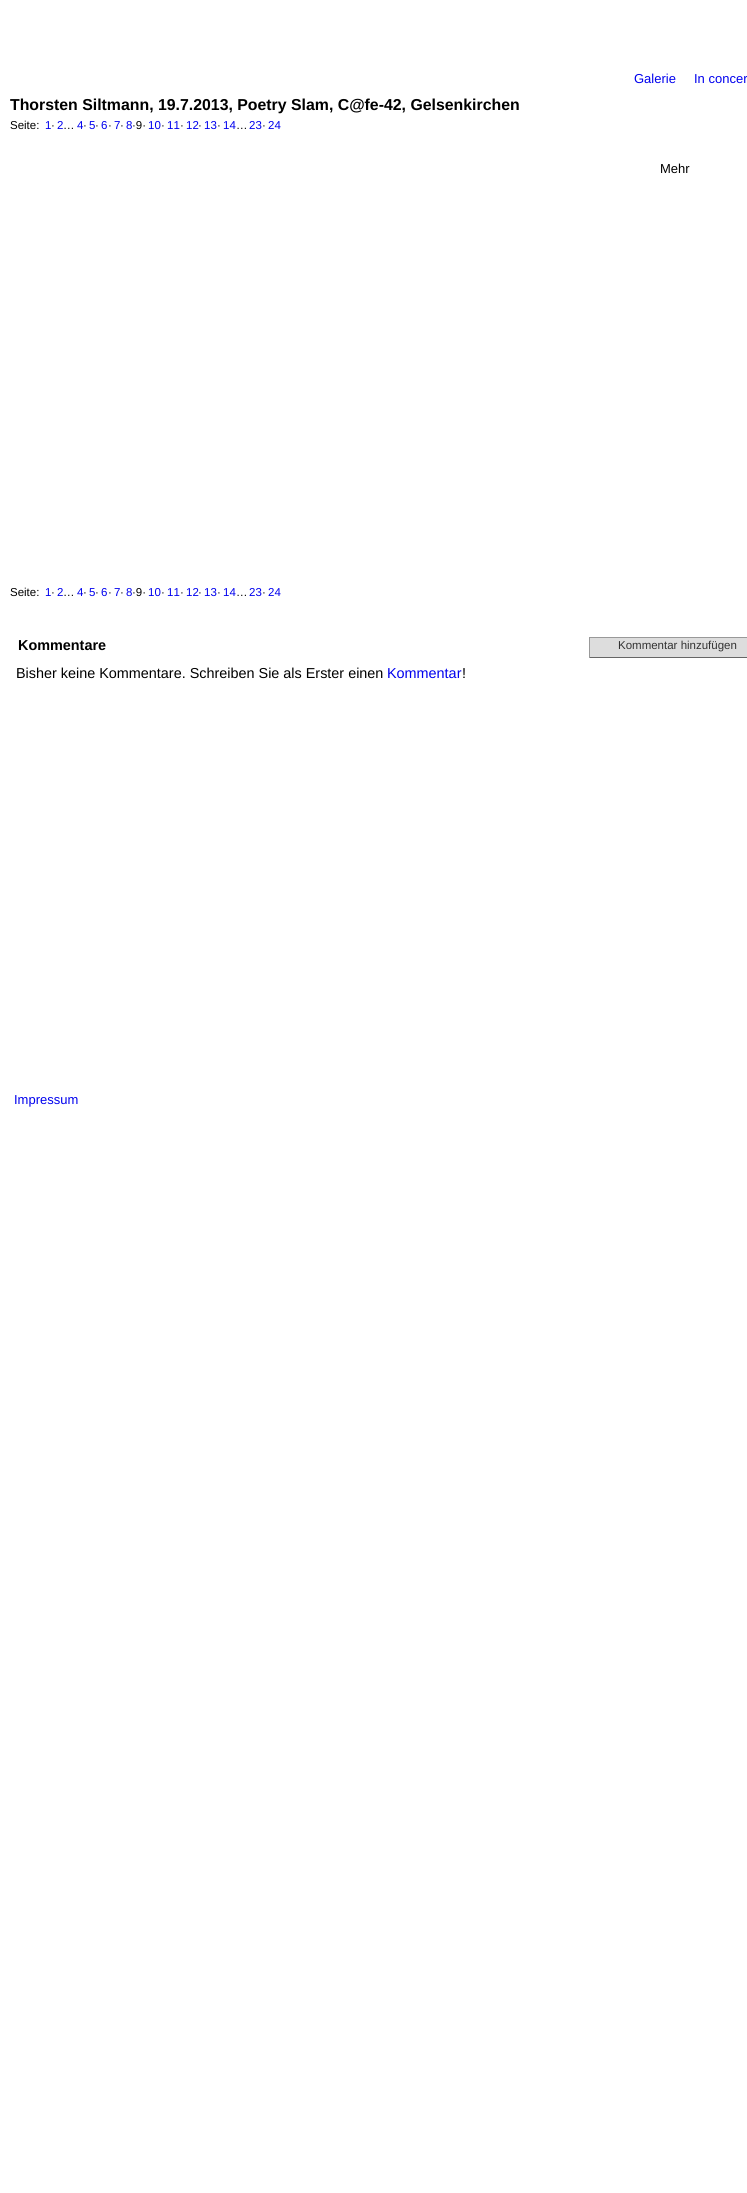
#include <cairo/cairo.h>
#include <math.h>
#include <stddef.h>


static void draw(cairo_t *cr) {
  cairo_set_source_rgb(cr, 1, 1, 1);
  cairo_paint(cr);
  cairo_set_source_rgb(cr, 221 / 255.0, 221 / 255.0, 221 / 255.0);
  cairo_rectangle(cr, 590, 638, 157, 19);
  cairo_fill(cr);
  cairo_set_source_rgb(cr, 153 / 255.0, 153 / 255.0, 153 / 255.0);
  cairo_rectangle(cr, 589, 637, 158, 1);
  cairo_fill(cr);
  cairo_set_source_rgb(cr, 102 / 255.0, 102 / 255.0, 102 / 255.0);
  cairo_rectangle(cr, 589, 657, 158, 1);
  cairo_fill(cr);
  cairo_set_source_rgb(cr, 153 / 255.0, 153 / 255.0, 153 / 255.0);
  cairo_rectangle(cr, 589, 637, 1, 21);
  cairo_fill(cr);
  cairo_select_font_face(cr, "Liberation Sans", CAIRO_FONT_SLANT_NORMAL, CAIRO_FONT_WEIGHT_NORMAL);
  cairo_set_font_size(cr, 13);
  cairo_set_source_rgb(cr, 0, 0, 238 / 255.0);
  cairo_move_to(cr, 634, 83);
  cairo_show_text(cr, "Galerie");
  cairo_move_to(cr, 694, 83);
  cairo_show_text(cr, "In concer");
  cairo_select_font_face(cr, "Liberation Sans", CAIRO_FONT_SLANT_NORMAL, CAIRO_FONT_WEIGHT_BOLD);
  cairo_set_font_size(cr, 15.85);
  cairo_set_source_rgb(cr, 0, 0, 0);
  cairo_move_to(cr, 10, 110);
  cairo_show_text(cr, "Thorsten Siltmann, 19.7.2013, Poetry Slam, C@fe-42, Gelsenkirchen");
  cairo_select_font_face(cr, "Liberation Sans", CAIRO_FONT_SLANT_NORMAL, CAIRO_FONT_WEIGHT_NORMAL);
  cairo_set_font_size(cr, 11.5);
  cairo_move_to(cr, 10, 129);
  cairo_show_text(cr, "Seite:");
  cairo_set_source_rgb(cr, 0, 0, 238 / 255.0);
  cairo_move_to(cr, 45, 129);
  cairo_show_text(cr, "1");
  cairo_set_source_rgb(cr, 0, 0, 0);
  cairo_move_to(cr, 51, 129);
  cairo_show_text(cr, "·");
  cairo_set_source_rgb(cr, 0, 0, 238 / 255.0);
  cairo_move_to(cr, 57, 129);
  cairo_show_text(cr, "2");
  cairo_move_to(cr, 77, 129);
  cairo_show_text(cr, "4");
  cairo_set_source_rgb(cr, 0, 0, 0);
  cairo_move_to(cr, 83, 129);
  cairo_show_text(cr, "·");
  cairo_set_source_rgb(cr, 0, 0, 238 / 255.0);
  cairo_move_to(cr, 89, 129);
  cairo_show_text(cr, "5");
  cairo_set_source_rgb(cr, 0, 0, 0);
  cairo_move_to(cr, 95, 129);
  cairo_show_text(cr, "·");
  cairo_set_source_rgb(cr, 0, 0, 238 / 255.0);
  cairo_move_to(cr, 101, 129);
  cairo_show_text(cr, "6");
  cairo_set_source_rgb(cr, 0, 0, 0);
  cairo_move_to(cr, 108, 129);
  cairo_show_text(cr, "·");
  cairo_set_source_rgb(cr, 0, 0, 238 / 255.0);
  cairo_move_to(cr, 114, 129);
  cairo_show_text(cr, "7");
  cairo_set_source_rgb(cr, 0, 0, 0);
  cairo_move_to(cr, 120, 129);
  cairo_show_text(cr, "·");
  cairo_set_source_rgb(cr, 0, 0, 238 / 255.0);
  cairo_move_to(cr, 126, 129);
  cairo_show_text(cr, "8");
  cairo_set_source_rgb(cr, 0, 0, 0);
  cairo_move_to(cr, 132, 129);
  cairo_show_text(cr, "·9·");
  cairo_set_source_rgb(cr, 0, 0, 238 / 255.0);
  cairo_move_to(cr, 148, 129);
  cairo_show_text(cr, "10");
  cairo_set_source_rgb(cr, 0, 0, 0);
  cairo_move_to(cr, 161, 129);
  cairo_show_text(cr, "·");
  cairo_set_source_rgb(cr, 0, 0, 238 / 255.0);
  cairo_move_to(cr, 167, 129);
  cairo_show_text(cr, "11");
  cairo_set_source_rgb(cr, 0, 0, 0);
  cairo_move_to(cr, 180, 129);
  cairo_show_text(cr, "·");
  cairo_set_source_rgb(cr, 0, 0, 238 / 255.0);
  cairo_move_to(cr, 186, 129);
  cairo_show_text(cr, "12");
  cairo_set_source_rgb(cr, 0, 0, 0);
  cairo_move_to(cr, 198, 129);
  cairo_show_text(cr, "·");
  cairo_set_source_rgb(cr, 0, 0, 238 / 255.0);
  cairo_move_to(cr, 204, 129);
  cairo_show_text(cr, "13");
  cairo_set_source_rgb(cr, 0, 0, 0);
  cairo_move_to(cr, 217, 129);
  cairo_show_text(cr, "·");
  cairo_set_source_rgb(cr, 0, 0, 238 / 255.0);
  cairo_move_to(cr, 223, 129);
  cairo_show_text(cr, "14");
  cairo_move_to(cr, 249, 129);
  cairo_show_text(cr, "23");
  cairo_set_source_rgb(cr, 0, 0, 0);
  cairo_move_to(cr, 262, 129);
  cairo_show_text(cr, "·");
  cairo_set_source_rgb(cr, 0, 0, 238 / 255.0);
  cairo_move_to(cr, 268, 129);
  cairo_show_text(cr, "24");
  cairo_set_source_rgb(cr, 0, 0, 0);
  cairo_move_to(cr, 63, 129);
  cairo_show_text(cr, "…");
  cairo_move_to(cr, 236, 129);
  cairo_show_text(cr, "…");
  cairo_set_font_size(cr, 13);
  cairo_move_to(cr, 660, 173);
  cairo_show_text(cr, "Mehr");
  cairo_set_font_size(cr, 11.5);
  cairo_move_to(cr, 10, 596);
  cairo_show_text(cr, "Seite:");
  cairo_set_source_rgb(cr, 0, 0, 238 / 255.0);
  cairo_move_to(cr, 45, 596);
  cairo_show_text(cr, "1");
  cairo_set_source_rgb(cr, 0, 0, 0);
  cairo_move_to(cr, 51, 596);
  cairo_show_text(cr, "·");
  cairo_set_source_rgb(cr, 0, 0, 238 / 255.0);
  cairo_move_to(cr, 57, 596);
  cairo_show_text(cr, "2");
  cairo_move_to(cr, 77, 596);
  cairo_show_text(cr, "4");
  cairo_set_source_rgb(cr, 0, 0, 0);
  cairo_move_to(cr, 83, 596);
  cairo_show_text(cr, "·");
  cairo_set_source_rgb(cr, 0, 0, 238 / 255.0);
  cairo_move_to(cr, 89, 596);
  cairo_show_text(cr, "5");
  cairo_set_source_rgb(cr, 0, 0, 0);
  cairo_move_to(cr, 95, 596);
  cairo_show_text(cr, "·");
  cairo_set_source_rgb(cr, 0, 0, 238 / 255.0);
  cairo_move_to(cr, 101, 596);
  cairo_show_text(cr, "6");
  cairo_set_source_rgb(cr, 0, 0, 0);
  cairo_move_to(cr, 108, 596);
  cairo_show_text(cr, "·");
  cairo_set_source_rgb(cr, 0, 0, 238 / 255.0);
  cairo_move_to(cr, 114, 596);
  cairo_show_text(cr, "7");
  cairo_set_source_rgb(cr, 0, 0, 0);
  cairo_move_to(cr, 120, 596);
  cairo_show_text(cr, "·");
  cairo_set_source_rgb(cr, 0, 0, 238 / 255.0);
  cairo_move_to(cr, 126, 596);
  cairo_show_text(cr, "8");
  cairo_set_source_rgb(cr, 0, 0, 0);
  cairo_move_to(cr, 132, 596);
  cairo_show_text(cr, "·9·");
  cairo_set_source_rgb(cr, 0, 0, 238 / 255.0);
  cairo_move_to(cr, 148, 596);
  cairo_show_text(cr, "10");
  cairo_set_source_rgb(cr, 0, 0, 0);
  cairo_move_to(cr, 161, 596);
  cairo_show_text(cr, "·");
  cairo_set_source_rgb(cr, 0, 0, 238 / 255.0);
  cairo_move_to(cr, 167, 596);
  cairo_show_text(cr, "11");
  cairo_set_source_rgb(cr, 0, 0, 0);
  cairo_move_to(cr, 180, 596);
  cairo_show_text(cr, "·");
  cairo_set_source_rgb(cr, 0, 0, 238 / 255.0);
  cairo_move_to(cr, 186, 596);
  cairo_show_text(cr, "12");
  cairo_set_source_rgb(cr, 0, 0, 0);
  cairo_move_to(cr, 198, 596);
  cairo_show_text(cr, "·");
  cairo_set_source_rgb(cr, 0, 0, 238 / 255.0);
  cairo_move_to(cr, 204, 596);
  cairo_show_text(cr, "13");
  cairo_set_source_rgb(cr, 0, 0, 0);
  cairo_move_to(cr, 217, 596);
  cairo_show_text(cr, "·");
  cairo_set_source_rgb(cr, 0, 0, 238 / 255.0);
  cairo_move_to(cr, 223, 596);
  cairo_show_text(cr, "14");
  cairo_move_to(cr, 249, 596);
  cairo_show_text(cr, "23");
  cairo_set_source_rgb(cr, 0, 0, 0);
  cairo_move_to(cr, 262, 596);
  cairo_show_text(cr, "·");
  cairo_set_source_rgb(cr, 0, 0, 238 / 255.0);
  cairo_move_to(cr, 268, 596);
  cairo_show_text(cr, "24");
  cairo_set_source_rgb(cr, 0, 0, 0);
  cairo_move_to(cr, 63, 596);
  cairo_show_text(cr, "…");
  cairo_move_to(cr, 236, 596);
  cairo_show_text(cr, "…");
  cairo_set_source_rgb(cr, 51 / 255.0, 51 / 255.0, 51 / 255.0);
  cairo_move_to(cr, 618, 649);
  cairo_show_text(cr, "Kommentar hinzufügen");
  cairo_set_font_size(cr, 14.4);
  cairo_set_source_rgb(cr, 0, 0, 0);
  cairo_move_to(cr, 16, 678);
  cairo_show_text(cr, "Bisher keine Kommentare. Schreiben Sie als Erster einen");
  cairo_set_source_rgb(cr, 0, 0, 238 / 255.0);
  cairo_move_to(cr, 387, 678);
  cairo_show_text(cr, "Kommentar");
  cairo_set_source_rgb(cr, 0, 0, 0);
  cairo_move_to(cr, 462, 678);
  cairo_show_text(cr, "!");
  cairo_select_font_face(cr, "Liberation Sans", CAIRO_FONT_SLANT_NORMAL, CAIRO_FONT_WEIGHT_BOLD);
  cairo_move_to(cr, 18, 650);
  cairo_show_text(cr, "Kommentare");
  cairo_select_font_face(cr, "Liberation Sans", CAIRO_FONT_SLANT_NORMAL, CAIRO_FONT_WEIGHT_NORMAL);
  cairo_set_font_size(cr, 13);
  cairo_set_source_rgb(cr, 0, 0, 238 / 255.0);
  cairo_move_to(cr, 14, 1104);
  cairo_show_text(cr, "Impressum");
}

int main(void) {
  cairo_surface_t *surface = cairo_image_surface_create(CAIRO_FORMAT_RGB24, 747, 2193);
  cairo_t *cr = cairo_create(surface);
  cairo_font_options_t *options = cairo_font_options_create();
  cairo_font_options_set_hint_metrics(options, CAIRO_HINT_METRICS_OFF);
  cairo_font_options_set_hint_style(options, CAIRO_HINT_STYLE_NONE);
  cairo_set_font_options(cr, options);
  cairo_set_miter_limit(cr, 4);
  draw(cr);
  cairo_surface_write_to_png(surface, "out.png");
  cairo_font_options_destroy(options);
  cairo_destroy(cr);
  cairo_surface_destroy(surface);
  return 0;
}
